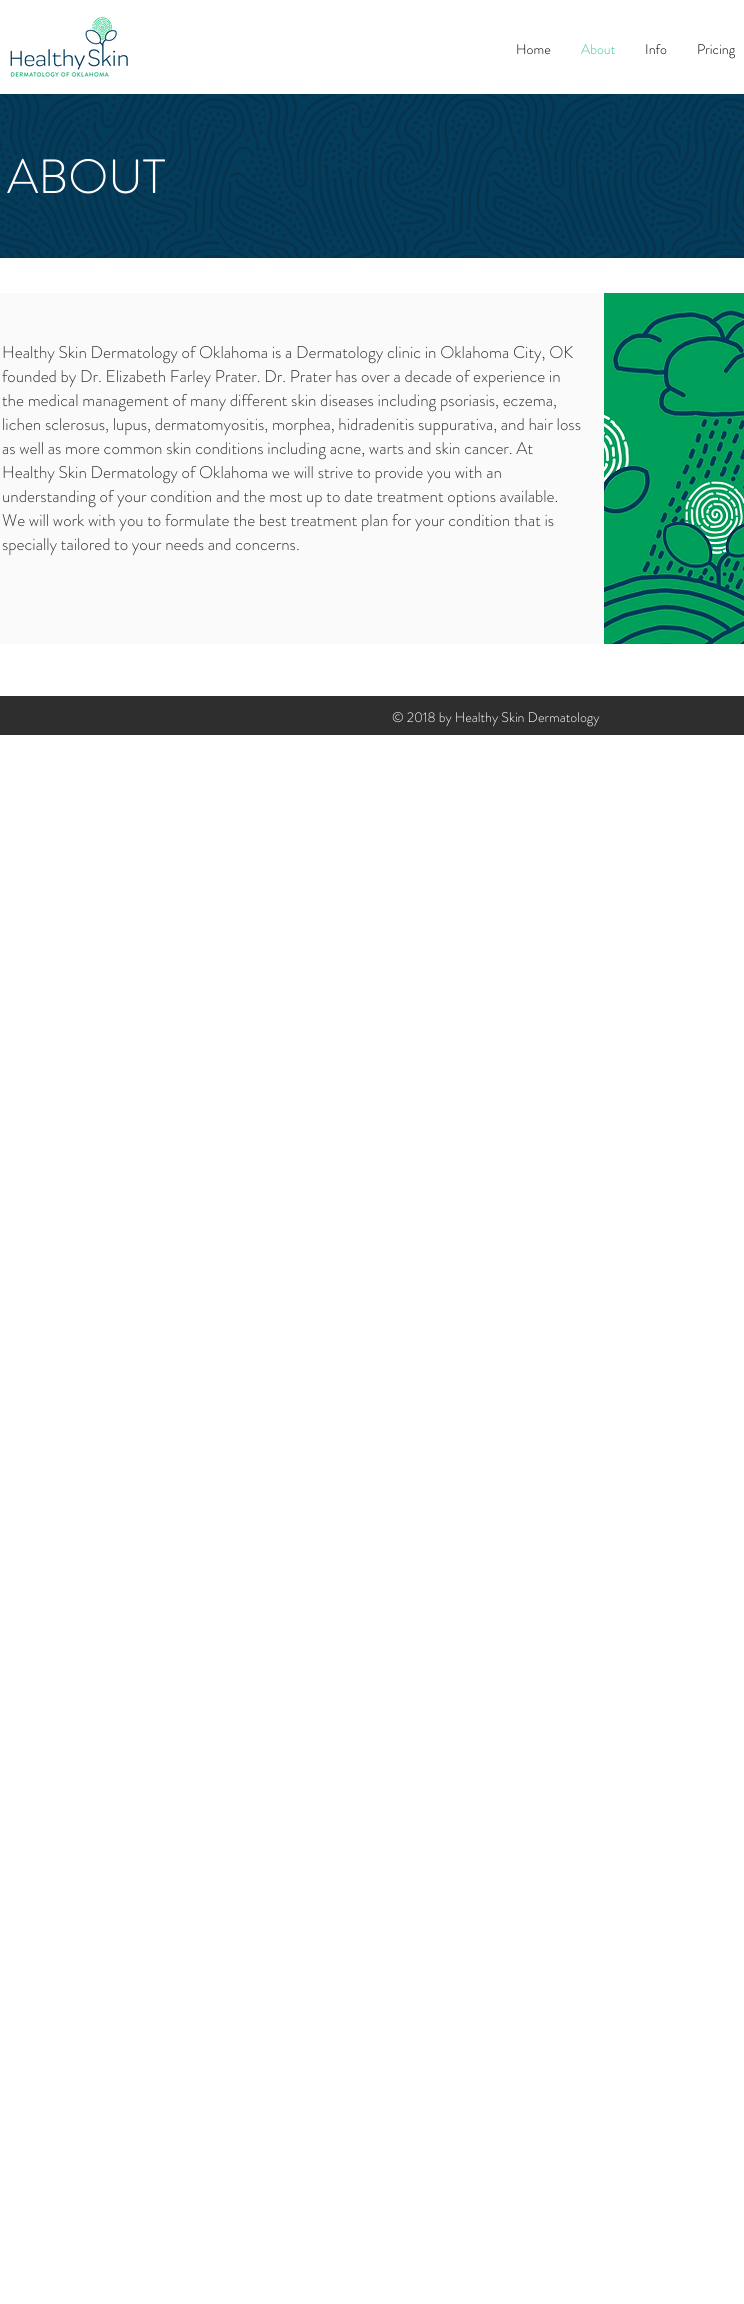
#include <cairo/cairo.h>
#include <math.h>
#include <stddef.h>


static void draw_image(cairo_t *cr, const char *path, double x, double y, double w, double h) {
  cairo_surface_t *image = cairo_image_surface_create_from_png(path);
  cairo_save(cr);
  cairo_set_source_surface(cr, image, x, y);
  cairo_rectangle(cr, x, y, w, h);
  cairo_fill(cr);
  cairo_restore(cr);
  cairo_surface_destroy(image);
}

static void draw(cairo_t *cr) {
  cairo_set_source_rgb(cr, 1, 1, 1);
  cairo_paint(cr);
  draw_image(cr, "images/1.png", 10, 17, 118, 60);
  draw_image(cr, "images/2.png", 0, 94, 744, 164);
  cairo_set_source_rgb(cr, 250 / 255.0, 250 / 255.0, 250 / 255.0);
  cairo_rectangle(cr, 0, 293, 604, 351);
  cairo_fill(cr);
  draw_image(cr, "images/3.png", 604, 293, 140, 351);
  cairo_set_source_rgb(cr, 47 / 255.0, 46 / 255.0, 46 / 255.0);
  cairo_rectangle(cr, 0, 696, 744, 39);
  cairo_fill(cr);
  cairo_select_font_face(cr, "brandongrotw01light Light", CAIRO_FONT_SLANT_NORMAL, CAIRO_FONT_WEIGHT_NORMAL);
  cairo_set_font_size(cr, 14);
  cairo_set_source_rgb(cr, 0, 0, 0);
  cairo_move_to(cr, 516, 54);
  cairo_show_text(cr, "Home");
  cairo_set_source_rgb(cr, 64 / 255.0, 200 / 255.0, 145 / 255.0);
  cairo_move_to(cr, 581, 54);
  cairo_show_text(cr, "About");
  cairo_set_source_rgb(cr, 0, 0, 0);
  cairo_move_to(cr, 645, 54);
  cairo_show_text(cr, "Info");
  cairo_move_to(cr, 697, 54);
  cairo_show_text(cr, "Pricing");
  cairo_set_font_size(cr, 48);
  cairo_set_source_rgb(cr, 1, 1, 1);
  cairo_move_to(cr, 7, 193);
  cairo_show_text(cr, "ABOUT");
  cairo_set_font_size(cr, 17);
  cairo_set_source_rgb(cr, 48 / 255.0, 48 / 255.0, 48 / 255.0);
  cairo_move_to(cr, 2, 358);
  cairo_show_text(cr, "Healthy Skin Dermatology of Oklahoma is a Dermatology clinic in Oklahoma City, OK");
  cairo_move_to(cr, 2, 382);
  cairo_show_text(cr, "founded by Dr. Elizabeth Farley Prater. Dr. Prater has over a decade of experience in");
  cairo_move_to(cr, 2, 406);
  cairo_show_text(cr, "the medical management of many different skin diseases including psoriasis, eczema,");
  cairo_move_to(cr, 2, 430);
  cairo_show_text(cr, "lichen sclerosus, lupus, dermatomyositis, morphea, hidradenitis suppurativa, and hair loss");
  cairo_move_to(cr, 2, 454);
  cairo_show_text(cr, "as well as more common skin conditions including acne, warts and skin cancer. At");
  cairo_move_to(cr, 2, 478);
  cairo_show_text(cr, "Healthy Skin Dermatology of Oklahoma we will strive to provide you with an");
  cairo_move_to(cr, 2, 502);
  cairo_show_text(cr, "understanding of your condition and the most up to date treatment options available.");
  cairo_move_to(cr, 2, 526);
  cairo_show_text(cr, "We will work with you to formulate the best treatment plan for your condition that is");
  cairo_move_to(cr, 2, 550);
  cairo_show_text(cr, "specially tailored to your needs and concerns.");
  cairo_set_font_size(cr, 14);
  cairo_set_source_rgb(cr, 1, 1, 1);
  cairo_move_to(cr, 392, 722);
  cairo_show_text(cr, "© 2018 by Healthy Skin Dermatology");
}

int main(void) {
  cairo_surface_t *surface = cairo_image_surface_create(CAIRO_FORMAT_RGB24, 744, 2304);
  cairo_t *cr = cairo_create(surface);
  cairo_font_options_t *options = cairo_font_options_create();
  cairo_font_options_set_hint_metrics(options, CAIRO_HINT_METRICS_OFF);
  cairo_font_options_set_hint_style(options, CAIRO_HINT_STYLE_NONE);
  cairo_set_font_options(cr, options);
  cairo_set_miter_limit(cr, 4);
  draw(cr);
  cairo_surface_write_to_png(surface, "out.png");
  cairo_font_options_destroy(options);
  cairo_destroy(cr);
  cairo_surface_destroy(surface);
  return 0;
}
